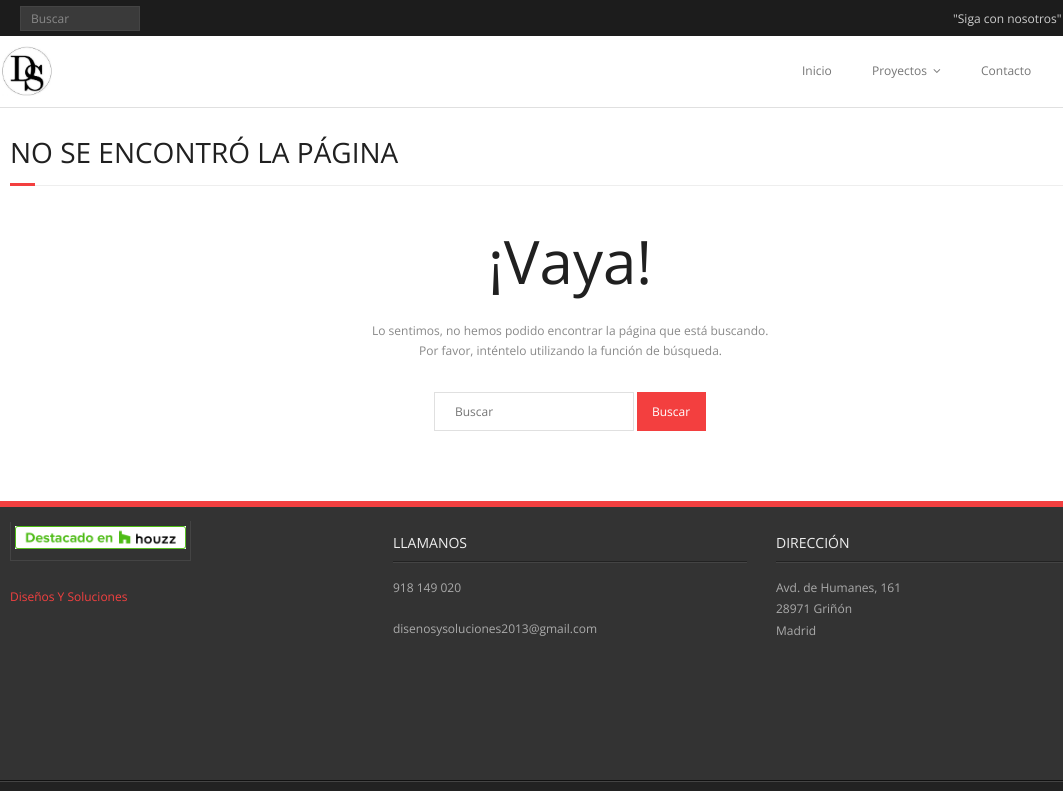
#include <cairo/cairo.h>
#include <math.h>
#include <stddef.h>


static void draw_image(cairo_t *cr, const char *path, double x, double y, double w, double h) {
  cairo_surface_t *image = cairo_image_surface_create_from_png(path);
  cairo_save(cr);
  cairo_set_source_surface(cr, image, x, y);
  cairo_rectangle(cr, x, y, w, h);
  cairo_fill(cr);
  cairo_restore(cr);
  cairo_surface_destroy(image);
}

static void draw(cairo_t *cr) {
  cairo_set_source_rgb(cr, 1, 1, 1);
  cairo_paint(cr);
  cairo_set_source_rgb(cr, 28 / 255.0, 28 / 255.0, 28 / 255.0);
  cairo_rectangle(cr, 0, 0, 1063, 36);
  cairo_fill(cr);
  cairo_set_source_rgb(cr, 58 / 255.0, 58 / 255.0, 58 / 255.0);
  cairo_rectangle(cr, 20.5, 6.5, 119, 24);
  cairo_fill_preserve(cr);
  cairo_set_source_rgb(cr, 68 / 255.0, 68 / 255.0, 68 / 255.0);
  cairo_set_line_width(cr, 1);
  cairo_stroke(cr);
  cairo_set_source_rgb(cr, 224 / 255.0, 224 / 255.0, 224 / 255.0);
  cairo_rectangle(cr, 0, 107, 1063, 1);
  cairo_fill(cr);
  draw_image(cr, "images/1.png", 2, 46, 50, 50);
  draw_image(cr, "images/2.png", 933, 69, 8, 4);
  cairo_set_source_rgb(cr, 243 / 255.0, 63 / 255.0, 63 / 255.0);
  cairo_rectangle(cr, 10, 183, 25, 3);
  cairo_fill(cr);
  cairo_set_source_rgb(cr, 238 / 255.0, 238 / 255.0, 238 / 255.0);
  cairo_rectangle(cr, 35, 185, 1028, 1);
  cairo_fill(cr);
  cairo_rectangle(cr, 434.5, 392.5, 199, 38);
  cairo_set_source_rgb(cr, 224 / 255.0, 224 / 255.0, 224 / 255.0);
  cairo_stroke(cr);
  cairo_set_source_rgb(cr, 243 / 255.0, 63 / 255.0, 63 / 255.0);
  cairo_rectangle(cr, 637, 392, 69, 39);
  cairo_fill(cr);
  cairo_set_source_rgb(cr, 51 / 255.0, 51 / 255.0, 51 / 255.0);
  cairo_rectangle(cr, 0, 507, 1063, 273);
  cairo_fill(cr);
  cairo_set_source_rgb(cr, 243 / 255.0, 63 / 255.0, 63 / 255.0);
  cairo_rectangle(cr, 0, 501, 1063, 6);
  cairo_fill(cr);
  cairo_set_source_rgb(cr, 17 / 255.0, 17 / 255.0, 17 / 255.0);
  cairo_rectangle(cr, 0, 780, 1063, 1);
  cairo_fill(cr);
  cairo_set_source_rgb(cr, 68 / 255.0, 68 / 255.0, 68 / 255.0);
  cairo_rectangle(cr, 10, 522, 1, 39);
  cairo_fill(cr);
  cairo_rectangle(cr, 190, 521, 1, 40);
  cairo_fill(cr);
  cairo_rectangle(cr, 10, 560, 181, 1);
  cairo_fill(cr);
  draw_image(cr, "images/3.png", 15, 526, 171, 23);
  cairo_rectangle(cr, 393, 562, 354, 1);
  cairo_fill(cr);
  cairo_set_source_rgb(cr, 34 / 255.0, 34 / 255.0, 34 / 255.0);
  cairo_rectangle(cr, 393, 561, 354, 1);
  cairo_fill(cr);
  cairo_set_source_rgb(cr, 68 / 255.0, 68 / 255.0, 68 / 255.0);
  cairo_rectangle(cr, 776, 562, 287, 1);
  cairo_fill(cr);
  cairo_set_source_rgb(cr, 34 / 255.0, 34 / 255.0, 34 / 255.0);
  cairo_rectangle(cr, 776, 561, 287, 1);
  cairo_fill(cr);
  cairo_rectangle(cr, 0, 782, 1063, 9);
  cairo_fill(cr);
  cairo_set_source_rgb(cr, 68 / 255.0, 68 / 255.0, 68 / 255.0);
  cairo_rectangle(cr, 0, 781, 1063, 1);
  cairo_fill(cr);
  cairo_select_font_face(cr, "Open Sans", CAIRO_FONT_SLANT_NORMAL, CAIRO_FONT_WEIGHT_NORMAL);
  cairo_set_font_size(cr, 12);
  cairo_set_source_rgb(cr, 136 / 255.0, 136 / 255.0, 136 / 255.0);
  cairo_move_to(cr, 31, 23);
  cairo_show_text(cr, "Buscar");
  cairo_set_source_rgb(cr, 204 / 255.0, 204 / 255.0, 204 / 255.0);
  cairo_move_to(cr, 953, 23);
  cairo_show_text(cr, "\"Siga con nosotros\"");
  cairo_set_source_rgb(cr, 117 / 255.0, 117 / 255.0, 117 / 255.0);
  cairo_move_to(cr, 802, 75);
  cairo_show_text(cr, "Inicio");
  cairo_move_to(cr, 872, 75);
  cairo_show_text(cr, "Proyectos");
  cairo_move_to(cr, 981, 75);
  cairo_show_text(cr, "Contacto");
  cairo_set_font_size(cr, 28);
  cairo_set_source_rgb(cr, 32 / 255.0, 32 / 255.0, 32 / 255.0);
  cairo_move_to(cr, 10, 163);
  cairo_show_text(cr, "NO SE ENCONTRÓ LA PÁGINA");
  cairo_set_font_size(cr, 60);
  cairo_move_to(cr, 488, 284);
  cairo_show_text(cr, "¡Vaya!");
  cairo_set_font_size(cr, 12);
  cairo_set_source_rgb(cr, 136 / 255.0, 136 / 255.0, 136 / 255.0);
  cairo_move_to(cr, 372, 335);
  cairo_show_text(cr, "Lo sentimos, no hemos podido encontrar la página que está buscando.");
  cairo_move_to(cr, 419, 355);
  cairo_show_text(cr, "Por favor, inténtelo utilizando la función de búsqueda.");
  cairo_set_source_rgb(cr, 117 / 255.0, 117 / 255.0, 117 / 255.0);
  cairo_move_to(cr, 455, 416);
  cairo_show_text(cr, "Buscar");
  cairo_set_source_rgb(cr, 1, 1, 1);
  cairo_move_to(cr, 652, 416);
  cairo_show_text(cr, "Buscar");
  cairo_set_source_rgb(cr, 243 / 255.0, 63 / 255.0, 63 / 255.0);
  cairo_move_to(cr, 10, 601);
  cairo_show_text(cr, "Diseños Y Soluciones");
  cairo_set_font_size(cr, 14);
  cairo_set_source_rgb(cr, 238 / 255.0, 238 / 255.0, 238 / 255.0);
  cairo_move_to(cr, 393, 548);
  cairo_show_text(cr, "LLAMANOS");
  cairo_set_font_size(cr, 12);
  cairo_set_source_rgb(cr, 170 / 255.0, 170 / 255.0, 170 / 255.0);
  cairo_move_to(cr, 393, 592);
  cairo_show_text(cr, "918 149 020");
  cairo_move_to(cr, 393, 633);
  cairo_show_text(cr, "disenosysoluciones2013@gmail.com");
  cairo_set_font_size(cr, 14);
  cairo_set_source_rgb(cr, 238 / 255.0, 238 / 255.0, 238 / 255.0);
  cairo_move_to(cr, 776, 548);
  cairo_show_text(cr, "DIRECCIÓN");
  cairo_set_font_size(cr, 12);
  cairo_set_source_rgb(cr, 170 / 255.0, 170 / 255.0, 170 / 255.0);
  cairo_move_to(cr, 776, 592);
  cairo_show_text(cr, "Avd. de Humanes, 161");
  cairo_move_to(cr, 776, 613);
  cairo_show_text(cr, "28971 Griñón");
  cairo_move_to(cr, 776, 635);
  cairo_show_text(cr, "Madrid");
}

int main(void) {
  cairo_surface_t *surface = cairo_image_surface_create(CAIRO_FORMAT_RGB24, 1063, 791);
  cairo_t *cr = cairo_create(surface);
  cairo_font_options_t *options = cairo_font_options_create();
  cairo_font_options_set_hint_metrics(options, CAIRO_HINT_METRICS_OFF);
  cairo_font_options_set_hint_style(options, CAIRO_HINT_STYLE_NONE);
  cairo_set_font_options(cr, options);
  cairo_set_miter_limit(cr, 4);
  draw(cr);
  cairo_surface_write_to_png(surface, "out.png");
  cairo_font_options_destroy(options);
  cairo_destroy(cr);
  cairo_surface_destroy(surface);
  return 0;
}
